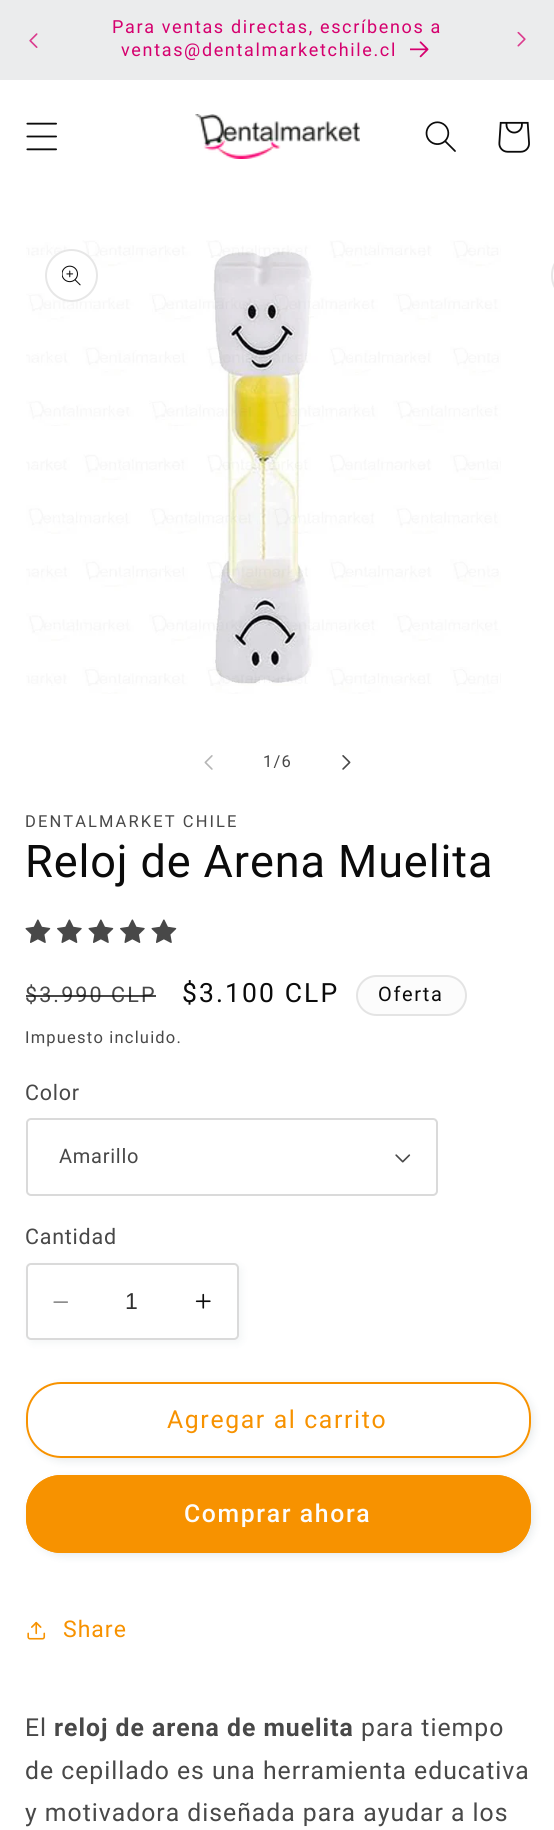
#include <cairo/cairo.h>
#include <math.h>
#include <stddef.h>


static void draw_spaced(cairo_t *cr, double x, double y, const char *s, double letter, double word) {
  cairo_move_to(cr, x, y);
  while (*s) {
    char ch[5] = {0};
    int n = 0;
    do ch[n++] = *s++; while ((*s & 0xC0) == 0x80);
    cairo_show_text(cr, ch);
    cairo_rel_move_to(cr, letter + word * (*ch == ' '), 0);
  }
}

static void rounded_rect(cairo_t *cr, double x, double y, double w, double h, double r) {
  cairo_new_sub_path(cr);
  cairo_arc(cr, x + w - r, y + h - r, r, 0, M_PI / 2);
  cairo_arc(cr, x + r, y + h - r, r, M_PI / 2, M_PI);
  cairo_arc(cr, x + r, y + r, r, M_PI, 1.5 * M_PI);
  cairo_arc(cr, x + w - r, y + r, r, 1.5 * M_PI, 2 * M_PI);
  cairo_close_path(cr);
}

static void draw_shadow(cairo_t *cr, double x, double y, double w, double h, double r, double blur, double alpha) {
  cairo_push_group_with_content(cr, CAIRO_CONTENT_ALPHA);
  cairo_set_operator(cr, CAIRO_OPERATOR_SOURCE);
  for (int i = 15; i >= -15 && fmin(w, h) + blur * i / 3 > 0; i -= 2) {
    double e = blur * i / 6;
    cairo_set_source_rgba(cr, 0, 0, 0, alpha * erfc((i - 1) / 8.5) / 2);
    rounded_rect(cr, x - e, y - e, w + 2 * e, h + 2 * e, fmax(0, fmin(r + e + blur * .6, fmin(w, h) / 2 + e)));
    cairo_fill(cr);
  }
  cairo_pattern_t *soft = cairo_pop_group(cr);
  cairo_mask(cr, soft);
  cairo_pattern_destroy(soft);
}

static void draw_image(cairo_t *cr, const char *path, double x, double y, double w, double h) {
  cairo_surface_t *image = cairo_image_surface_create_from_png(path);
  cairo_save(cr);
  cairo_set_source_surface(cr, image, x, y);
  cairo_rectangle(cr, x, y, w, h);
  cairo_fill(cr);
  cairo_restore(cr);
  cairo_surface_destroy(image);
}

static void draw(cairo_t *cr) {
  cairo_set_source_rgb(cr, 1, 1, 1);
  cairo_paint(cr);
  cairo_set_source_rgb(cr, 235 / 255.0, 236 / 255.0, 237 / 255.0);
  cairo_rectangle(cr, 0, 0, 554, 80);
  cairo_fill(cr);
  draw_image(cr, "images/1.png", 29, 33, 9, 15);
  draw_image(cr, "images/2.png", 410, 41, 19, 17);
  draw_image(cr, "images/3.png", 517, 31, 9, 16);
  draw_image(cr, "images/4.png", 26, 122, 31, 29);
  draw_image(cr, "images/5.png", 195, 114, 165, 45);
  draw_image(cr, "images/6.png", 425, 121, 31, 31);
  draw_image(cr, "images/7.png", 498, 121, 32, 32);
  draw_image(cr, "images/8.png", 26, 240, 475, 454);
  cairo_set_source_rgb(cr, 1, 1, 1);
  cairo_arc(cr, 71.5, 275.5, 26.5, 0, 2 * M_PI);
  cairo_fill(cr);
  cairo_arc(cr, 71.5, 275.5, 25.5, 0, 2 * M_PI);
  cairo_set_source_rgba(cr, 11 / 255.0, 11 / 255.0, 11 / 255.0, 0.1);
  cairo_stroke(cr);
  draw_image(cr, "images/9.png", 62, 265, 19, 21);
  rounded_rect(cr, 552, 250, 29, 51, 25);
  cairo_set_source_rgb(cr, 231 / 255.0, 231 / 255.0, 231 / 255.0);
  cairo_stroke(cr);
  draw_image(cr, "images/10.png", 204, 755, 9, 15);
  draw_image(cr, "images/11.png", 342, 755, 9, 15);
  draw_image(cr, "images/12.png", 25, 919, 26, 24);
  draw_image(cr, "images/13.png", 57, 919, 25, 24);
  draw_image(cr, "images/12.png", 88, 919, 26, 24);
  draw_image(cr, "images/13.png", 120, 919, 25, 24);
  draw_image(cr, "images/12.png", 151, 919, 26, 24);
  cairo_set_source_rgb(cr, 252 / 255.0, 252 / 255.0, 252 / 255.0);
  rounded_rect(cr, 357, 976, 109, 39, 19.5);
  cairo_fill_preserve(cr);
  cairo_set_source_rgb(cr, 228 / 255.0, 228 / 255.0, 228 / 255.0);
  cairo_stroke(cr);
  draw_image(cr, "images/14.png", 395, 1154, 16, 9);
  rounded_rect(cr, 27, 1119, 410, 76, 4);
  cairo_set_source_rgba(cr, 11 / 255.0, 11 / 255.0, 11 / 255.0, 0.15);
  cairo_stroke(cr);
  cairo_set_source_rgb(cr, 16 / 255.0, 57 / 255.0, 72 / 255.0);
  draw_shadow(cr, 29, 1266, 213, 77, 5, 4, 0.05);
  cairo_set_source_rgb(cr, 1, 1, 1);
  rounded_rect(cr, 26, 1263, 213, 77, 5);
  cairo_fill(cr);
  draw_image(cr, "images/15.png", 53, 1301, 15, 2);
  draw_image(cr, "images/16.png", 195, 1293, 16, 16);
  rounded_rect(cr, 27, 1264, 211, 75, 4);
  cairo_set_source_rgba(cr, 11 / 255.0, 11 / 255.0, 11 / 255.0, 0.15);
  cairo_stroke(cr);
  cairo_set_source_rgb(cr, 16 / 255.0, 57 / 255.0, 72 / 255.0);
  draw_shadow(cr, 29, 1385, 505, 76, 35, 4, 0.1);
  cairo_set_source_rgb(cr, 1, 1, 1);
  rounded_rect(cr, 26, 1382, 505, 76, 35);
  cairo_fill(cr);
  rounded_rect(cr, 27, 1383, 503, 74, 34);
  cairo_stroke(cr);
  rounded_rect(cr, 27, 1383, 503, 74, 34);
  cairo_set_source_rgb(cr, 247 / 255.0, 146 / 255.0, 0);
  cairo_stroke(cr);
  cairo_set_source_rgb(cr, 16 / 255.0, 57 / 255.0, 72 / 255.0);
  draw_shadow(cr, 29, 1478, 505, 78, 35, 4, 0.1);
  cairo_set_source_rgb(cr, 247 / 255.0, 146 / 255.0, 0);
  rounded_rect(cr, 26, 1475, 505, 78, 35);
  cairo_fill(cr);
  rounded_rect(cr, 27, 1476, 503, 76, 34);
  cairo_stroke(cr);
  draw_image(cr, "images/17.png", 27, 1621, 19, 19);
  cairo_select_font_face(cr, "Roboto", CAIRO_FONT_SLANT_NORMAL, CAIRO_FONT_WEIGHT_NORMAL);
  cairo_set_font_size(cr, 18);
  cairo_set_source_rgb(cr, 213 / 255.0, 0, 110 / 255.0);
  draw_spaced(cr, 112, 33, "Para ventas directas, escríbenos a", 1.65, 0);
  draw_spaced(cr, 121, 56, "ventas@dentalmarketchile.cl", 1.65, 0);
  cairo_set_font_size(cr, 16.5);
  cairo_set_source_rgb(cr, 72 / 255.0, 72 / 255.0, 72 / 255.0);
  draw_spaced(cr, 263, 767, "1/6", 1.2, 0);
  draw_spaced(cr, 25, 827, "DENTALMARKET CHILE", 2.1, 0);
  cairo_set_font_size(cr, 45);
  cairo_set_source_rgb(cr, 11 / 255.0, 11 / 255.0, 11 / 255.0);
  draw_spaced(cr, 25, 877, "Reloj de Arena Muelita", 0.9, 0);
  cairo_set_font_size(cr, 21.5);
  cairo_set_source_rgb(cr, 72 / 255.0, 72 / 255.0, 72 / 255.0);
  draw_spaced(cr, 25, 1002, "$3.990 CLP", 2.1, 0);
  cairo_set_source_rgba(cr, 11 / 255.0, 11 / 255.0, 11 / 255.0, 0.75);
  cairo_rectangle(cr, 26, 995, 130, 2);
  cairo_fill(cr);
  cairo_set_font_size(cr, 26.5);
  cairo_set_source_rgb(cr, 11 / 255.0, 11 / 255.0, 11 / 255.0);
  draw_spaced(cr, 182, 1002, "$3.100 CLP", 2.1, 0);
  cairo_set_font_size(cr, 20);
  draw_spaced(cr, 378, 1001, "Oferta", 1.65, 0);
  cairo_set_font_size(cr, 16.5);
  cairo_set_source_rgb(cr, 72 / 255.0, 72 / 255.0, 72 / 255.0);
  draw_spaced(cr, 25, 1043, "Impuesto incluido.", 1.2, 0);
  cairo_set_font_size(cr, 21.5);
  draw_spaced(cr, 25, 1100, "Color", 0.75, 0);
  cairo_set_font_size(cr, 20);
  draw_spaced(cr, 59, 1163, "Amarillo", 0.75, 0);
  cairo_set_font_size(cr, 21.5);
  draw_spaced(cr, 25, 1244, "Cantidad", 0.75, 0);
  cairo_select_font_face(cr, "Liberation Sans", CAIRO_FONT_SLANT_NORMAL, CAIRO_FONT_WEIGHT_NORMAL);
  cairo_set_font_size(cr, 23);
  cairo_set_source_rgb(cr, 48 / 255.0, 48 / 255.0, 48 / 255.0);
  cairo_move_to(cr, 125, 1309);
  cairo_show_text(cr, "1");
  cairo_select_font_face(cr, "Roboto", CAIRO_FONT_SLANT_NORMAL, CAIRO_FONT_WEIGHT_NORMAL);
  cairo_set_font_size(cr, 24.75);
  cairo_set_source_rgb(cr, 247 / 255.0, 146 / 255.0, 0);
  draw_spaced(cr, 167, 1428, "Agregar al carrito", 1.65, 0);
  cairo_select_font_face(cr, "Roboto Medium", CAIRO_FONT_SLANT_NORMAL, CAIRO_FONT_WEIGHT_NORMAL);
  cairo_set_source_rgb(cr, 252 / 255.0, 252 / 255.0, 252 / 255.0);
  draw_spaced(cr, 184, 1522, "Comprar ahora", 1.65, 0);
  cairo_select_font_face(cr, "Roboto", CAIRO_FONT_SLANT_NORMAL, CAIRO_FONT_WEIGHT_NORMAL);
  cairo_set_font_size(cr, 23);
  cairo_set_source_rgb(cr, 247 / 255.0, 146 / 255.0, 0);
  draw_spaced(cr, 63, 1637, "Share", 1, 0);
  cairo_set_font_size(cr, 24.75);
  cairo_set_source_rgb(cr, 72 / 255.0, 72 / 255.0, 72 / 255.0);
  draw_spaced(cr, 25, 1736, "El", 1, 0);
  cairo_select_font_face(cr, "Roboto", CAIRO_FONT_SLANT_NORMAL, CAIRO_FONT_WEIGHT_BOLD);
  draw_spaced(cr, 54, 1736, "reloj de arena de muelita", 1, 0);
  cairo_select_font_face(cr, "Roboto", CAIRO_FONT_SLANT_NORMAL, CAIRO_FONT_WEIGHT_NORMAL);
  draw_spaced(cr, 361, 1736, "para tiempo", 1, 0);
  draw_spaced(cr, 25, 1779, "de cepillado es una herramienta educativa", 1, 0);
  draw_spaced(cr, 25, 1821, "y motivadora diseñada para ayudar a los", 1, 0);
}

int main(void) {
  cairo_surface_t *surface = cairo_image_surface_create(CAIRO_FORMAT_RGB24, 554, 1830);
  cairo_t *cr = cairo_create(surface);
  cairo_font_options_t *options = cairo_font_options_create();
  cairo_font_options_set_hint_metrics(options, CAIRO_HINT_METRICS_OFF);
  cairo_font_options_set_hint_style(options, CAIRO_HINT_STYLE_NONE);
  cairo_set_font_options(cr, options);
  cairo_set_miter_limit(cr, 4);
  draw(cr);
  cairo_surface_write_to_png(surface, "out.png");
  cairo_font_options_destroy(options);
  cairo_destroy(cr);
  cairo_surface_destroy(surface);
  return 0;
}
